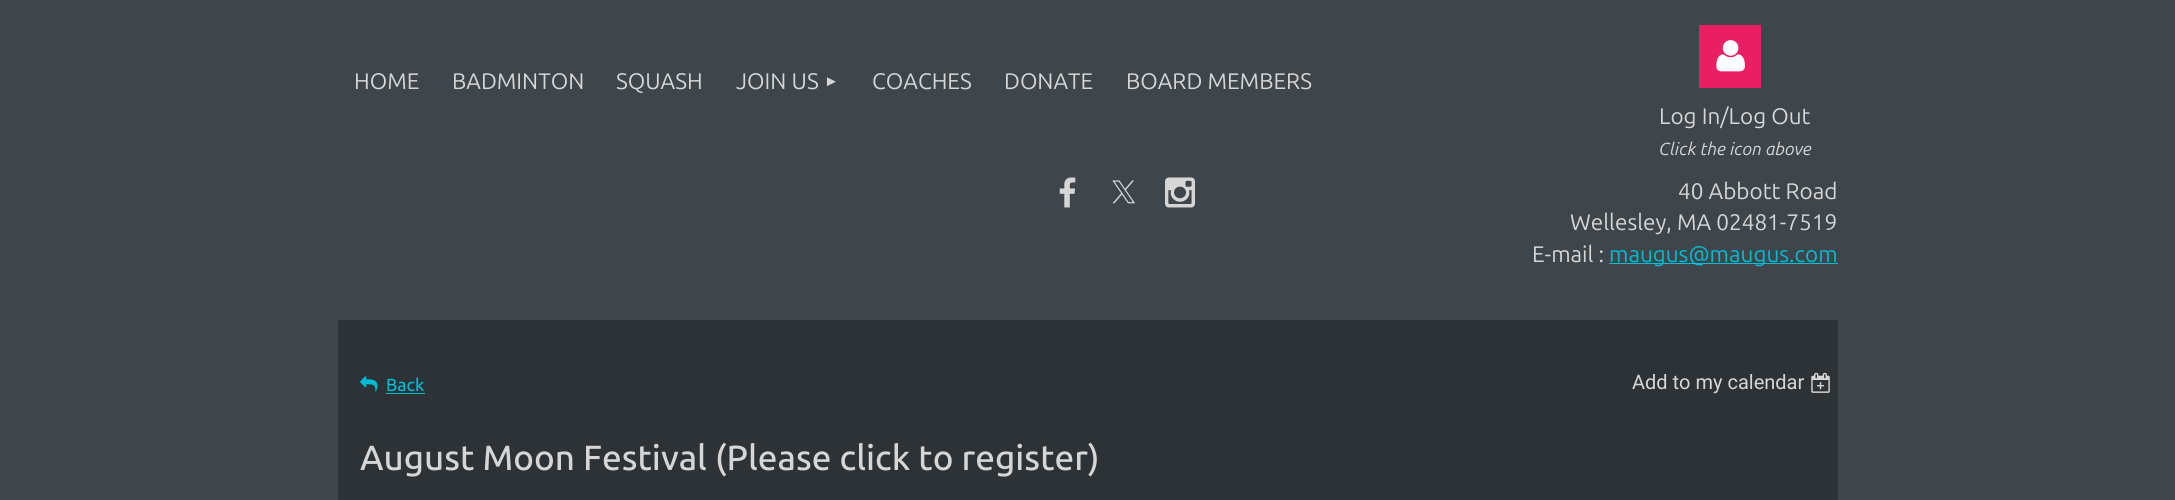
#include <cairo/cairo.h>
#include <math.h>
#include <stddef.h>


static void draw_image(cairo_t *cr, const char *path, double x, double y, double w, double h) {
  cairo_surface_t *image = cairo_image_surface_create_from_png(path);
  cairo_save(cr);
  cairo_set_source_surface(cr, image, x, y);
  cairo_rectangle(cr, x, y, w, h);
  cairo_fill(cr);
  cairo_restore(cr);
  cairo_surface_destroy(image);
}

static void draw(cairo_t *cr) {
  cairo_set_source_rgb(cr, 62 / 255.0, 70 / 255.0, 76 / 255.0);
  cairo_paint(cr);
  cairo_set_source_rgb(cr, 233 / 255.0, 30 / 255.0, 99 / 255.0);
  cairo_rectangle(cr, 1699, 25, 62, 63);
  cairo_fill(cr);
  draw_image(cr, "images/1.png", 1716, 40, 29, 32);
  draw_image(cr, "images/2.png", 1059, 177, 17, 31);
  draw_image(cr, "images/3.png", 1112, 180, 23, 24);
  draw_image(cr, "images/4.png", 1165, 177, 30, 31);
  cairo_set_source_rgb(cr, 0, 188 / 255.0, 212 / 255.0);
  cairo_rectangle(cr, 1609, 263, 229, 1);
  cairo_fill(cr);
  cairo_set_source_rgb(cr, 44 / 255.0, 50 / 255.0, 54 / 255.0);
  cairo_rectangle(cr, 338, 320, 1500, 180);
  cairo_fill(cr);
  draw_image(cr, "images/5.png", 360, 376, 18, 16);
  cairo_set_source_rgb(cr, 0, 188 / 255.0, 212 / 255.0);
  cairo_rectangle(cr, 386, 393, 39, 1);
  cairo_fill(cr);
  draw_image(cr, "images/6.png", 1811, 372, 19, 21);
  cairo_select_font_face(cr, "Ubuntu", CAIRO_FONT_SLANT_NORMAL, CAIRO_FONT_WEIGHT_NORMAL);
  cairo_set_font_size(cr, 22.5);
  cairo_set_source_rgb(cr, 214 / 255.0, 214 / 255.0, 214 / 255.0);
  cairo_move_to(cr, 354, 89);
  cairo_show_text(cr, "HOME");
  cairo_move_to(cr, 452, 89);
  cairo_show_text(cr, "BADMINTON");
  cairo_move_to(cr, 616, 89);
  cairo_show_text(cr, "SQUASH");
  cairo_move_to(cr, 736, 89);
  cairo_show_text(cr, "JOIN US");
  cairo_select_font_face(cr, "Liberation Sans", CAIRO_FONT_SLANT_NORMAL, CAIRO_FONT_WEIGHT_NORMAL);
  cairo_set_font_size(cr, 15);
  cairo_move_to(cr, 824, 86);
  cairo_show_text(cr, "►");
  cairo_select_font_face(cr, "Ubuntu", CAIRO_FONT_SLANT_NORMAL, CAIRO_FONT_WEIGHT_NORMAL);
  cairo_set_font_size(cr, 22.5);
  cairo_move_to(cr, 872, 89);
  cairo_show_text(cr, "COACHES");
  cairo_move_to(cr, 1004, 89);
  cairo_show_text(cr, "DONATE");
  cairo_move_to(cr, 1126, 89);
  cairo_show_text(cr, "BOARD MEMBERS");
  cairo_move_to(cr, 1659, 124);
  cairo_show_text(cr, "Log In/Log Out");
  cairo_select_font_face(cr, "Ubuntu", CAIRO_FONT_SLANT_ITALIC, CAIRO_FONT_WEIGHT_NORMAL);
  cairo_set_font_size(cr, 17.5);
  cairo_move_to(cr, 1659, 155);
  cairo_show_text(cr, "Click the icon above");
  cairo_select_font_face(cr, "Ubuntu", CAIRO_FONT_SLANT_NORMAL, CAIRO_FONT_WEIGHT_NORMAL);
  cairo_set_font_size(cr, 22.5);
  cairo_move_to(cr, 1678, 199);
  cairo_show_text(cr, "40 Abbott Road");
  cairo_move_to(cr, 1570, 230);
  cairo_show_text(cr, "Wellesley, MA 02481-7519");
  cairo_move_to(cr, 1532, 262);
  cairo_show_text(cr, "E-mail :");
  cairo_set_source_rgb(cr, 0, 188 / 255.0, 212 / 255.0);
  cairo_move_to(cr, 1609, 262);
  cairo_show_text(cr, "maugus@maugus.com");
  cairo_select_font_face(cr, "Ubuntu Medium", CAIRO_FONT_SLANT_NORMAL, CAIRO_FONT_WEIGHT_NORMAL);
  cairo_set_font_size(cr, 17.5);
  cairo_move_to(cr, 386, 391);
  cairo_show_text(cr, "Back");
  cairo_select_font_face(cr, "Roboto", CAIRO_FONT_SLANT_NORMAL, CAIRO_FONT_WEIGHT_NORMAL);
  cairo_set_font_size(cr, 20);
  cairo_set_source_rgb(cr, 214 / 255.0, 214 / 255.0, 214 / 255.0);
  cairo_move_to(cr, 1632, 389);
  cairo_show_text(cr, "Add to my calendar");
  cairo_select_font_face(cr, "Ubuntu Medium", CAIRO_FONT_SLANT_NORMAL, CAIRO_FONT_WEIGHT_NORMAL);
  cairo_set_font_size(cr, 35);
  cairo_move_to(cr, 360, 470);
  cairo_show_text(cr, "August Moon Festival (Please click to register)");
}

int main(void) {
  cairo_surface_t *surface = cairo_image_surface_create(CAIRO_FORMAT_RGB24, 2175, 500);
  cairo_t *cr = cairo_create(surface);
  cairo_font_options_t *options = cairo_font_options_create();
  cairo_font_options_set_hint_metrics(options, CAIRO_HINT_METRICS_OFF);
  cairo_font_options_set_hint_style(options, CAIRO_HINT_STYLE_NONE);
  cairo_set_font_options(cr, options);
  cairo_set_miter_limit(cr, 4);
  draw(cr);
  cairo_surface_write_to_png(surface, "out.png");
  cairo_font_options_destroy(options);
  cairo_destroy(cr);
  cairo_surface_destroy(surface);
  return 0;
}
